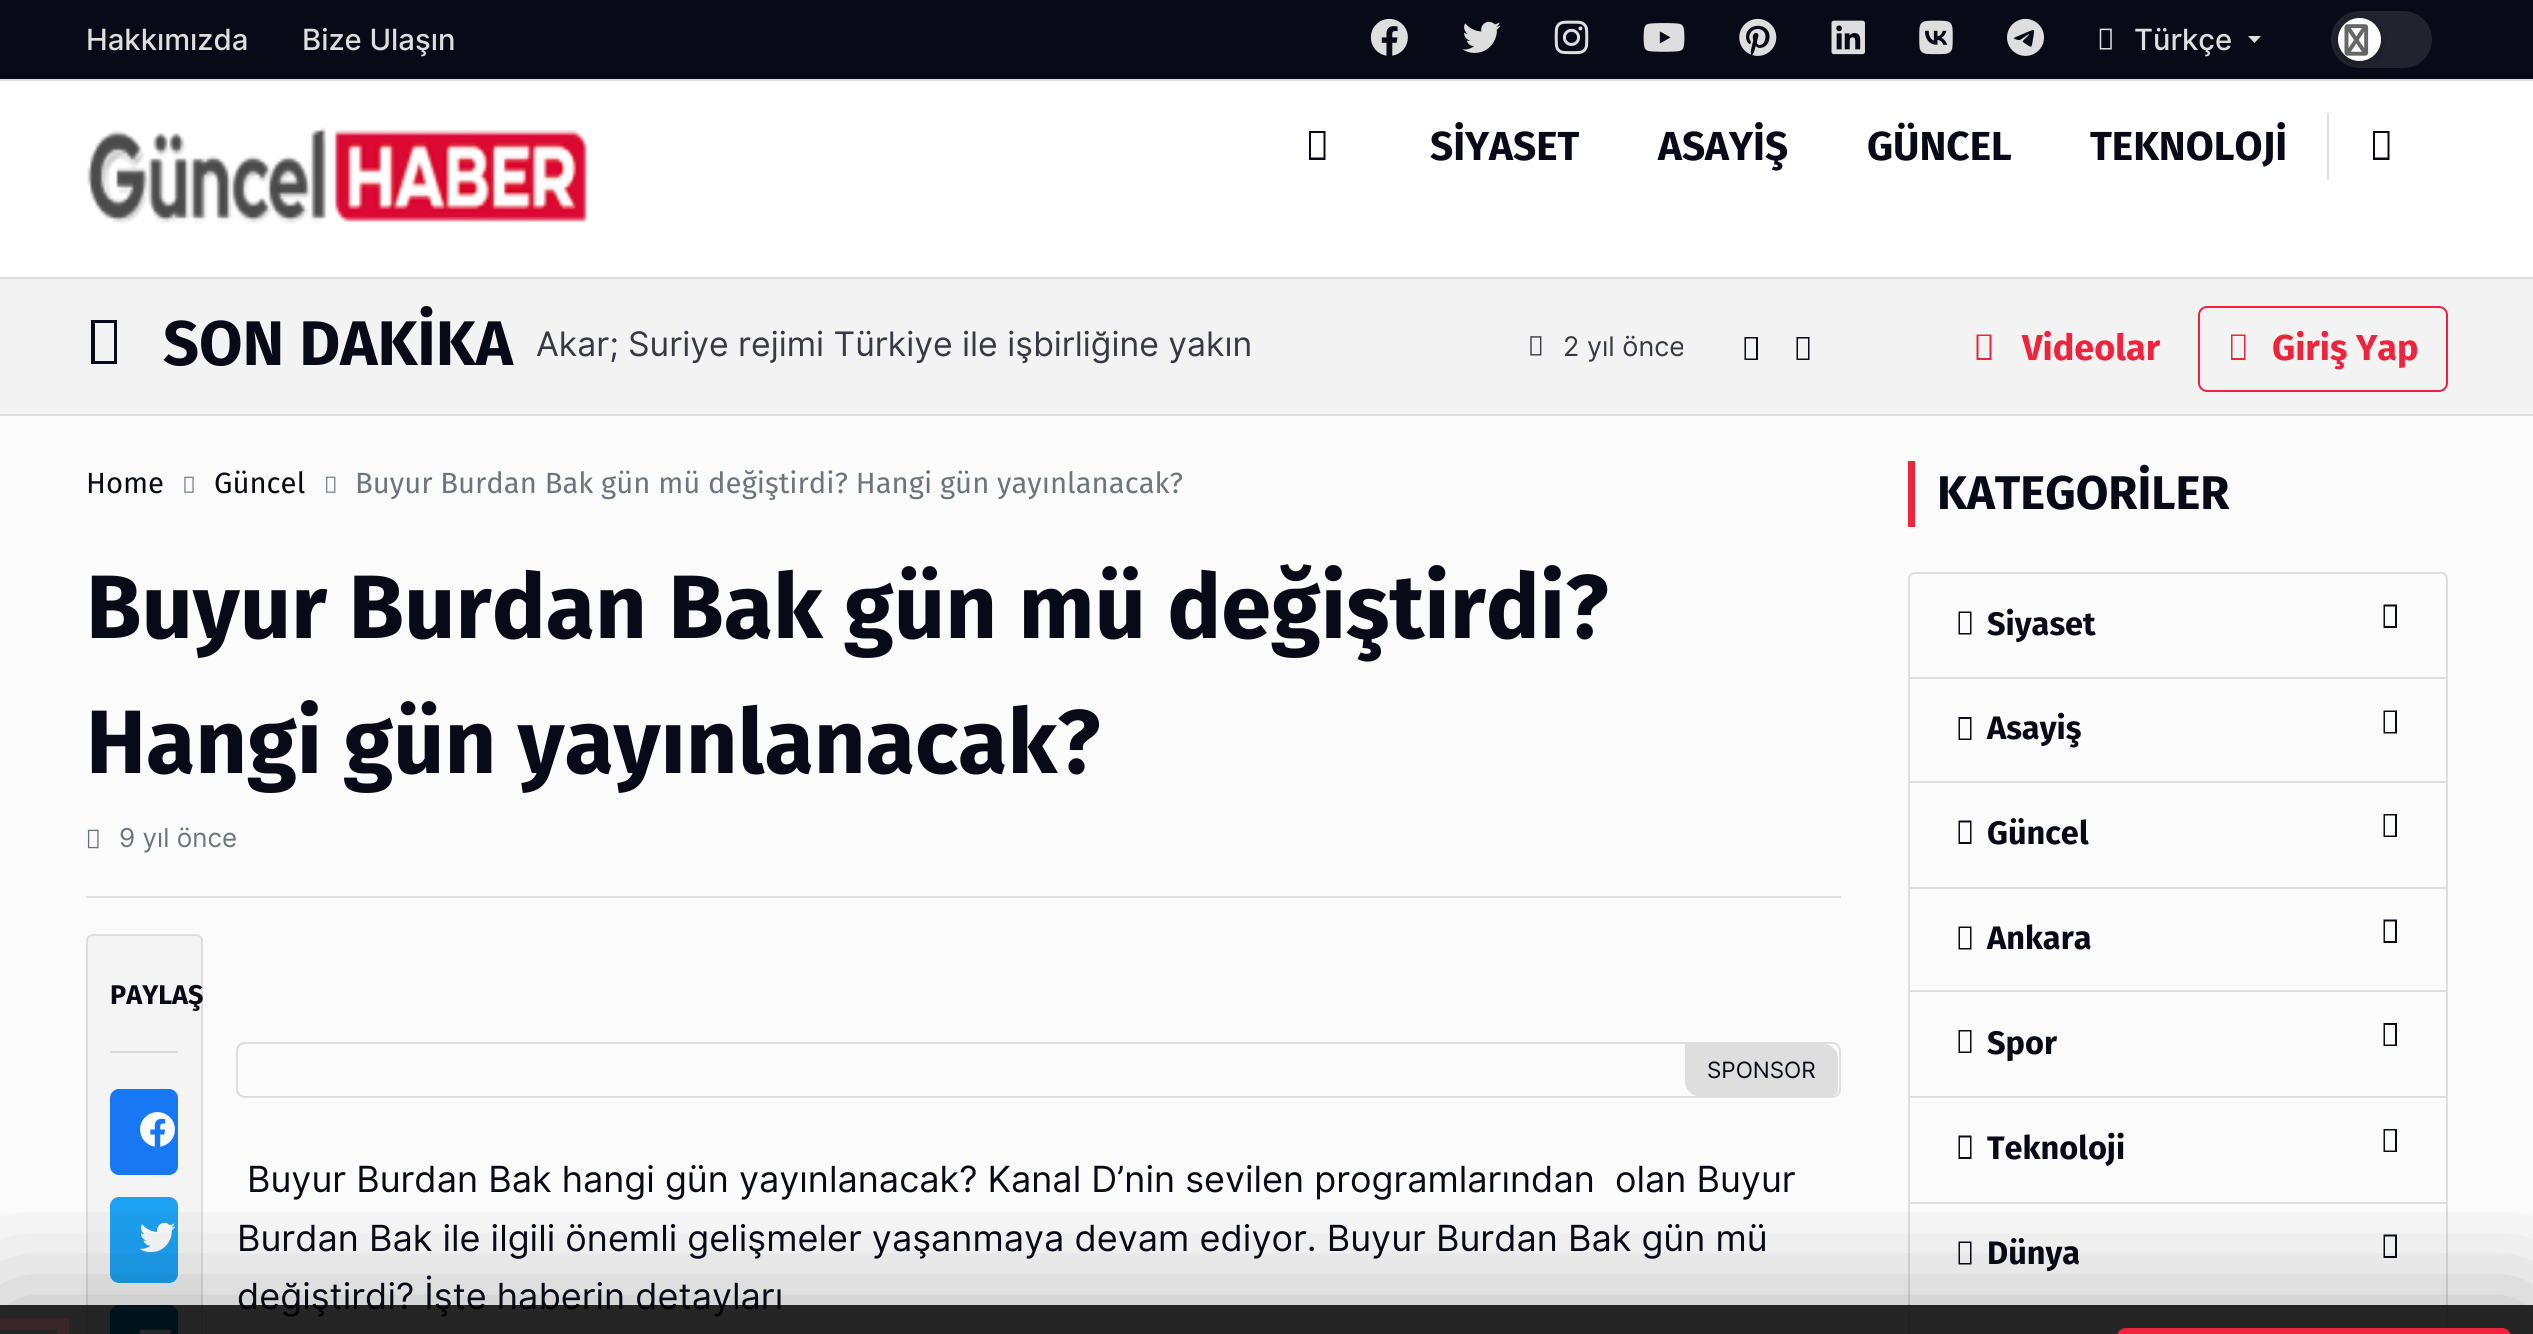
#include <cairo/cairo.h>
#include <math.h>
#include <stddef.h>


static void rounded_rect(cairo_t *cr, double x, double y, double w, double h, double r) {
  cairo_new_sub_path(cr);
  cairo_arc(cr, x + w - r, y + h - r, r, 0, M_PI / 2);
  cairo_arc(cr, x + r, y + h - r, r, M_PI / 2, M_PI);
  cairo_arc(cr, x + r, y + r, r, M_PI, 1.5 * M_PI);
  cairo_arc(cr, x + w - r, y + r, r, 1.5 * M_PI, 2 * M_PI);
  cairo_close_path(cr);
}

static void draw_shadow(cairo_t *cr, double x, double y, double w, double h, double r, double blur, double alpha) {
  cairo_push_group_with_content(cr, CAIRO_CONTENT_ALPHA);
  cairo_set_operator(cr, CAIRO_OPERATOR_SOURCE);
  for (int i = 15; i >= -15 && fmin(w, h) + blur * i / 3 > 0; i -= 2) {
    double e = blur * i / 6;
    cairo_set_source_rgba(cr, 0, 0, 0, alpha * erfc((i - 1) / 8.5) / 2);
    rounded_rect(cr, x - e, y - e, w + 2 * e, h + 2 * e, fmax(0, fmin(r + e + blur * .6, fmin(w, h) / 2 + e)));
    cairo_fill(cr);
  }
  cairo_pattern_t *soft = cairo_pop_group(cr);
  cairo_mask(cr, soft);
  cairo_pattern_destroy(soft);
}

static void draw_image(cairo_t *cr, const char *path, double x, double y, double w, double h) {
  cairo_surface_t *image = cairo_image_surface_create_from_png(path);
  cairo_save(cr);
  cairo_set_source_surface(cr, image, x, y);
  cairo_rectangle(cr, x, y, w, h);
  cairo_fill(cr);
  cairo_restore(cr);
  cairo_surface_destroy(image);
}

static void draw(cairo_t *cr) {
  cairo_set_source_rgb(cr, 243 / 255.0, 243 / 255.0, 243 / 255.0);
  cairo_paint(cr);
  cairo_set_source_rgb(cr, 8 / 255.0, 11 / 255.0, 23 / 255.0);
  cairo_rectangle(cr, 0, 0, 2533, 79);
  cairo_fill(cr);
  cairo_set_source_rgb(cr, 222 / 255.0, 222 / 255.0, 222 / 255.0);
  cairo_rectangle(cr, 0, 79, 2533, 2);
  cairo_fill(cr);
  draw_image(cr, "images/1.png", 1370, 18, 38, 38);
  draw_image(cr, "images/2.png", 1462, 21, 39, 32);
  draw_image(cr, "images/3.png", 1554, 20, 35, 35);
  draw_image(cr, "images/4.png", 1643, 23, 42, 29);
  draw_image(cr, "images/5.png", 1739, 18, 38, 38);
  draw_image(cr, "images/6.png", 1831, 20, 34, 35);
  draw_image(cr, "images/7.png", 1919, 20, 34, 35);
  draw_image(cr, "images/8.png", 2007, 18, 38, 38);
  draw_image(cr, "images/9.png", 2099, 28, 13, 22);
  cairo_new_path(cr);
  cairo_move_to(cr, 2248, 36);
  cairo_line_to(cr, 2261, 36);
  cairo_line_to(cr, 2254.5, 43);
  cairo_close_path(cr);
  cairo_fill(cr);
  cairo_set_source_rgb(cr, 33 / 255.0, 35 / 255.0, 46 / 255.0);
  rounded_rect(cr, 2331, 11, 101, 57, 28.5);
  cairo_fill(cr);
  cairo_set_source_rgb(cr, 0, 0, 0);
  draw_shadow(cr, 2338, 20, 43, 43, 21.5, 3.5, 0.3);
  cairo_set_source_rgb(cr, 1, 1, 1);
  cairo_arc(cr, 2359.5, 39.5, 21.5, 0, 2 * M_PI);
  cairo_fill(cr);
  draw_image(cr, "images/10.png", 2344, 24, 25, 32);
  cairo_rectangle(cr, 0, 81, 2533, 196);
  cairo_fill(cr);
  cairo_set_source_rgb(cr, 222 / 255.0, 222 / 255.0, 222 / 255.0);
  cairo_rectangle(cr, 0, 277, 2533, 2);
  cairo_fill(cr);
  draw_image(cr, "images/11.png", 87, 127, 500, 97);
  cairo_set_source_rgb(cr, 8 / 255.0, 11 / 255.0, 23 / 255.0);
  cairo_new_path(cr);
  cairo_move_to(cr, 1309, 160);
  cairo_line_to(cr, 1309, 131);
  cairo_line_to(cr, 1325.5, 131);
  cairo_line_to(cr, 1325.5, 160);
  cairo_close_path(cr);
  cairo_move_to(cr, 1311, 157.5);
  cairo_line_to(cr, 1323.5, 157.5);
  cairo_line_to(cr, 1323.5, 133);
  cairo_line_to(cr, 1311, 133);
  cairo_close_path(cr);
  cairo_fill(cr);
  cairo_set_source_rgb(cr, 222 / 255.0, 222 / 255.0, 222 / 255.0);
  cairo_rectangle(cr, 2327, 113, 2, 67);
  cairo_fill(cr);
  cairo_set_source_rgb(cr, 8 / 255.0, 11 / 255.0, 23 / 255.0);
  cairo_new_path(cr);
  cairo_move_to(cr, 2373, 160);
  cairo_line_to(cr, 2373, 131);
  cairo_line_to(cr, 2389.5, 131);
  cairo_line_to(cr, 2389.5, 160);
  cairo_close_path(cr);
  cairo_move_to(cr, 2375, 157.5);
  cairo_line_to(cr, 2387.5, 157.5);
  cairo_line_to(cr, 2387.5, 133);
  cairo_line_to(cr, 2375, 133);
  cairo_close_path(cr);
  cairo_fill(cr);
  cairo_new_path(cr);
  cairo_move_to(cr, 91, 364);
  cairo_line_to(cr, 91, 320);
  cairo_line_to(cr, 117, 320);
  cairo_line_to(cr, 117, 364);
  cairo_close_path(cr);
  cairo_move_to(cr, 95, 361);
  cairo_line_to(cr, 114, 361);
  cairo_line_to(cr, 114, 323);
  cairo_line_to(cr, 95, 323);
  cairo_close_path(cr);
  cairo_fill(cr);
  draw_image(cr, "images/12.png", 1530, 336, 12, 20);
  cairo_new_path(cr);
  cairo_move_to(cr, 1744.5, 360);
  cairo_line_to(cr, 1744.5, 337);
  cairo_line_to(cr, 1758, 337);
  cairo_line_to(cr, 1758, 360);
  cairo_close_path(cr);
  cairo_move_to(cr, 1746, 358.5);
  cairo_line_to(cr, 1756, 358.5);
  cairo_line_to(cr, 1756, 338.5);
  cairo_line_to(cr, 1746, 338.5);
  cairo_close_path(cr);
  cairo_fill(cr);
  cairo_new_path(cr);
  cairo_move_to(cr, 1796.5, 360);
  cairo_line_to(cr, 1796.5, 337);
  cairo_line_to(cr, 1809.5, 337);
  cairo_line_to(cr, 1809.5, 360);
  cairo_close_path(cr);
  cairo_move_to(cr, 1798, 358.5);
  cairo_line_to(cr, 1808, 358.5);
  cairo_line_to(cr, 1808, 338.5);
  cairo_line_to(cr, 1798, 338.5);
  cairo_close_path(cr);
  cairo_fill(cr);
  cairo_set_source_rgb(cr, 239 / 255.0, 35 / 255.0, 60 / 255.0);
  cairo_new_path(cr);
  cairo_move_to(cr, 1976.5, 360);
  cairo_line_to(cr, 1976.5, 334.5);
  cairo_line_to(cr, 1991.5, 334.5);
  cairo_line_to(cr, 1991.5, 360);
  cairo_close_path(cr);
  cairo_move_to(cr, 1978.5, 358);
  cairo_line_to(cr, 1989.5, 358);
  cairo_line_to(cr, 1989.5, 336);
  cairo_line_to(cr, 1978.5, 336);
  cairo_close_path(cr);
  cairo_fill(cr);
  rounded_rect(cr, 2199, 307, 248, 84, 8);
  cairo_stroke(cr);
  cairo_new_path(cr);
  cairo_move_to(cr, 2231, 360);
  cairo_line_to(cr, 2231, 334.5);
  cairo_line_to(cr, 2245.5, 334.5);
  cairo_line_to(cr, 2245.5, 360);
  cairo_close_path(cr);
  cairo_move_to(cr, 2232.5, 358);
  cairo_line_to(cr, 2244, 358);
  cairo_line_to(cr, 2244, 336);
  cairo_line_to(cr, 2232.5, 336);
  cairo_close_path(cr);
  cairo_fill(cr);
  cairo_set_source_rgb(cr, 251 / 255.0, 251 / 255.0, 251 / 255.0);
  cairo_rectangle(cr, 0, 416, 2533, 918);
  cairo_fill(cr);
  cairo_set_source_rgb(cr, 222 / 255.0, 222 / 255.0, 222 / 255.0);
  cairo_rectangle(cr, 0, 414, 2533, 2);
  cairo_fill(cr);
  draw_image(cr, "images/13.png", 184, 476, 10, 17);
  draw_image(cr, "images/14.png", 326, 476, 10, 17);
  draw_image(cr, "images/15.png", 87, 829, 12, 20);
  cairo_set_source_rgb(cr, 226 / 255.0, 226 / 255.0, 226 / 255.0);
  cairo_rectangle(cr, 86, 896, 1755, 2);
  cairo_fill(cr);
  cairo_set_source_rgb(cr, 244 / 255.0, 244 / 255.0, 244 / 255.0);
  rounded_rect(cr, 87, 935, 115, 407, 6);
  cairo_fill_preserve(cr);
  cairo_set_source_rgb(cr, 222 / 255.0, 222 / 255.0, 222 / 255.0);
  cairo_stroke(cr);
  cairo_set_source_rgb(cr, 220 / 255.0, 220 / 255.0, 220 / 255.0);
  cairo_rectangle(cr, 110, 1051, 68, 2);
  cairo_fill(cr);
  cairo_set_source_rgb(cr, 24 / 255.0, 119 / 255.0, 242 / 255.0);
  rounded_rect(cr, 110, 1089, 68, 86, 9);
  cairo_fill(cr);
  draw_image(cr, "images/16.png", 140, 1112, 35, 35);
  cairo_set_source_rgb(cr, 29 / 255.0, 161 / 255.0, 242 / 255.0);
  rounded_rect(cr, 110, 1197, 68, 86, 9);
  cairo_fill(cr);
  draw_image(cr, "images/17.png", 139, 1222, 37, 31);
  cairo_set_source_rgb(cr, 0, 119 / 255.0, 181 / 255.0);
  rounded_rect(cr, 110, 1305, 68, 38, 9);
  cairo_fill(cr);
  draw_image(cr, "images/18.png", 139, 1329, 32, 5);
  rounded_rect(cr, 237, 1043, 1603, 54, 8);
  cairo_set_source_rgb(cr, 222 / 255.0, 222 / 255.0, 222 / 255.0);
  cairo_stroke(cr);
  cairo_save(cr);
  rounded_rect(cr, 239, 1044, 1599, 52, 7);
  cairo_clip(cr);
  cairo_new_path(cr);
  cairo_move_to(cr, 1685, 1044);
  cairo_line_to(cr, 1824, 1044);
  cairo_curve_to(cr, 1831.5, 1044, 1838, 1050.5, 1838, 1058);
  cairo_line_to(cr, 1838, 1089);
  cairo_curve_to(cr, 1838, 1093, 1835, 1096, 1831, 1096);
  cairo_line_to(cr, 1699, 1096);
  cairo_curve_to(cr, 1691.5, 1096, 1685, 1089.5, 1685, 1082);
  cairo_close_path(cr);
  cairo_fill(cr);
  cairo_restore(cr);
  cairo_set_source_rgb(cr, 239 / 255.0, 35 / 255.0, 60 / 255.0);
  cairo_rectangle(cr, 1908, 461, 7, 66);
  cairo_fill(cr);
  rounded_rect(cr, 1909, 573, 538, 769, 6);
  cairo_set_source_rgb(cr, 222 / 255.0, 222 / 255.0, 222 / 255.0);
  cairo_stroke(cr);
  cairo_rectangle(cr, 1910, 677, 536, 2);
  cairo_fill(cr);
  cairo_set_source_rgb(cr, 8 / 255.0, 11 / 255.0, 23 / 255.0);
  cairo_new_path(cr);
  cairo_move_to(cr, 1958.5, 634.5);
  cairo_line_to(cr, 1958.5, 611.5);
  cairo_line_to(cr, 1971.5, 611.5);
  cairo_line_to(cr, 1971.5, 634.5);
  cairo_close_path(cr);
  cairo_move_to(cr, 1960, 633);
  cairo_line_to(cr, 1970, 633);
  cairo_line_to(cr, 1970, 613);
  cairo_line_to(cr, 1960, 613);
  cairo_close_path(cr);
  cairo_fill(cr);
  cairo_new_path(cr);
  cairo_move_to(cr, 2383.5, 628);
  cairo_line_to(cr, 2383.5, 604.5);
  cairo_line_to(cr, 2397, 604.5);
  cairo_line_to(cr, 2397, 628);
  cairo_close_path(cr);
  cairo_move_to(cr, 2385, 626);
  cairo_line_to(cr, 2395, 626);
  cairo_line_to(cr, 2395, 606.5);
  cairo_line_to(cr, 2385, 606.5);
  cairo_close_path(cr);
  cairo_fill(cr);
  cairo_set_source_rgb(cr, 222 / 255.0, 222 / 255.0, 222 / 255.0);
  cairo_rectangle(cr, 1910, 781, 536, 2);
  cairo_fill(cr);
  cairo_set_source_rgb(cr, 8 / 255.0, 11 / 255.0, 23 / 255.0);
  cairo_new_path(cr);
  cairo_move_to(cr, 1958.5, 740);
  cairo_line_to(cr, 1958.5, 717);
  cairo_line_to(cr, 1971.5, 717);
  cairo_line_to(cr, 1971.5, 740);
  cairo_close_path(cr);
  cairo_move_to(cr, 1960, 738.5);
  cairo_line_to(cr, 1970, 738.5);
  cairo_line_to(cr, 1970, 719);
  cairo_line_to(cr, 1960, 719);
  cairo_close_path(cr);
  cairo_fill(cr);
  cairo_new_path(cr);
  cairo_move_to(cr, 2383.5, 733.5);
  cairo_line_to(cr, 2383.5, 710.5);
  cairo_line_to(cr, 2397, 710.5);
  cairo_line_to(cr, 2397, 733.5);
  cairo_close_path(cr);
  cairo_move_to(cr, 2385, 732);
  cairo_line_to(cr, 2395, 732);
  cairo_line_to(cr, 2395, 712);
  cairo_line_to(cr, 2385, 712);
  cairo_close_path(cr);
  cairo_fill(cr);
  cairo_set_source_rgb(cr, 222 / 255.0, 222 / 255.0, 222 / 255.0);
  cairo_rectangle(cr, 1910, 887, 536, 2);
  cairo_fill(cr);
  cairo_set_source_rgb(cr, 8 / 255.0, 11 / 255.0, 23 / 255.0);
  cairo_new_path(cr);
  cairo_move_to(cr, 1958.5, 844);
  cairo_line_to(cr, 1958.5, 820.5);
  cairo_line_to(cr, 1971.5, 820.5);
  cairo_line_to(cr, 1971.5, 844);
  cairo_close_path(cr);
  cairo_move_to(cr, 1960, 842);
  cairo_line_to(cr, 1970, 842);
  cairo_line_to(cr, 1970, 822.5);
  cairo_line_to(cr, 1960, 822.5);
  cairo_close_path(cr);
  cairo_fill(cr);
  cairo_new_path(cr);
  cairo_move_to(cr, 2383.5, 837);
  cairo_line_to(cr, 2383.5, 814);
  cairo_line_to(cr, 2397, 814);
  cairo_line_to(cr, 2397, 837);
  cairo_close_path(cr);
  cairo_move_to(cr, 2385, 835.5);
  cairo_line_to(cr, 2395, 835.5);
  cairo_line_to(cr, 2395, 815.5);
  cairo_line_to(cr, 2385, 815.5);
  cairo_close_path(cr);
  cairo_fill(cr);
  cairo_set_source_rgb(cr, 222 / 255.0, 222 / 255.0, 222 / 255.0);
  cairo_rectangle(cr, 1910, 990, 536, 2);
  cairo_fill(cr);
  cairo_set_source_rgb(cr, 8 / 255.0, 11 / 255.0, 23 / 255.0);
  cairo_new_path(cr);
  cairo_move_to(cr, 1958.5, 949.5);
  cairo_line_to(cr, 1958.5, 926.5);
  cairo_line_to(cr, 1971.5, 926.5);
  cairo_line_to(cr, 1971.5, 949.5);
  cairo_close_path(cr);
  cairo_move_to(cr, 1960, 948);
  cairo_line_to(cr, 1970, 948);
  cairo_line_to(cr, 1970, 928);
  cairo_line_to(cr, 1960, 928);
  cairo_close_path(cr);
  cairo_fill(cr);
  cairo_new_path(cr);
  cairo_move_to(cr, 2383.5, 943);
  cairo_line_to(cr, 2383.5, 919.5);
  cairo_line_to(cr, 2397, 919.5);
  cairo_line_to(cr, 2397, 943);
  cairo_close_path(cr);
  cairo_move_to(cr, 2385, 941);
  cairo_line_to(cr, 2395, 941);
  cairo_line_to(cr, 2395, 921.5);
  cairo_line_to(cr, 2385, 921.5);
  cairo_close_path(cr);
  cairo_fill(cr);
  cairo_set_source_rgb(cr, 222 / 255.0, 222 / 255.0, 222 / 255.0);
  cairo_rectangle(cr, 1910, 1096, 536, 2);
  cairo_fill(cr);
  cairo_set_source_rgb(cr, 8 / 255.0, 11 / 255.0, 23 / 255.0);
  cairo_new_path(cr);
  cairo_move_to(cr, 1958.5, 1053);
  cairo_line_to(cr, 1958.5, 1030);
  cairo_line_to(cr, 1971.5, 1030);
  cairo_line_to(cr, 1971.5, 1053);
  cairo_close_path(cr);
  cairo_move_to(cr, 1960, 1051.5);
  cairo_line_to(cr, 1970, 1051.5);
  cairo_line_to(cr, 1970, 1031.5);
  cairo_line_to(cr, 1960, 1031.5);
  cairo_close_path(cr);
  cairo_fill(cr);
  cairo_new_path(cr);
  cairo_move_to(cr, 2383.5, 1046);
  cairo_line_to(cr, 2383.5, 1023);
  cairo_line_to(cr, 2397, 1023);
  cairo_line_to(cr, 2397, 1046);
  cairo_close_path(cr);
  cairo_move_to(cr, 2385, 1044.5);
  cairo_line_to(cr, 2395, 1044.5);
  cairo_line_to(cr, 2395, 1025);
  cairo_line_to(cr, 2385, 1025);
  cairo_close_path(cr);
  cairo_fill(cr);
  cairo_set_source_rgb(cr, 222 / 255.0, 222 / 255.0, 222 / 255.0);
  cairo_rectangle(cr, 1910, 1202, 536, 2);
  cairo_fill(cr);
  cairo_set_source_rgb(cr, 8 / 255.0, 11 / 255.0, 23 / 255.0);
  cairo_new_path(cr);
  cairo_move_to(cr, 1958.5, 1159);
  cairo_line_to(cr, 1958.5, 1135.5);
  cairo_line_to(cr, 1971.5, 1135.5);
  cairo_line_to(cr, 1971.5, 1159);
  cairo_close_path(cr);
  cairo_move_to(cr, 1960, 1157);
  cairo_line_to(cr, 1970, 1157);
  cairo_line_to(cr, 1970, 1137.5);
  cairo_line_to(cr, 1960, 1137.5);
  cairo_close_path(cr);
  cairo_fill(cr);
  cairo_new_path(cr);
  cairo_move_to(cr, 2383.5, 1152);
  cairo_line_to(cr, 2383.5, 1129);
  cairo_line_to(cr, 2397, 1129);
  cairo_line_to(cr, 2397, 1152);
  cairo_close_path(cr);
  cairo_move_to(cr, 2385, 1150.5);
  cairo_line_to(cr, 2395, 1150.5);
  cairo_line_to(cr, 2395, 1130.5);
  cairo_line_to(cr, 2385, 1130.5);
  cairo_close_path(cr);
  cairo_fill(cr);
  cairo_set_source_rgb(cr, 222 / 255.0, 222 / 255.0, 222 / 255.0);
  cairo_rectangle(cr, 1910, 1305, 536, 2);
  cairo_fill(cr);
  cairo_set_source_rgb(cr, 8 / 255.0, 11 / 255.0, 23 / 255.0);
  cairo_new_path(cr);
  cairo_move_to(cr, 1958.5, 1264.5);
  cairo_line_to(cr, 1958.5, 1241.5);
  cairo_line_to(cr, 1971.5, 1241.5);
  cairo_line_to(cr, 1971.5, 1264.5);
  cairo_close_path(cr);
  cairo_move_to(cr, 1960, 1263);
  cairo_line_to(cr, 1970, 1263);
  cairo_line_to(cr, 1970, 1243);
  cairo_line_to(cr, 1960, 1243);
  cairo_close_path(cr);
  cairo_fill(cr);
  cairo_new_path(cr);
  cairo_move_to(cr, 2383.5, 1258);
  cairo_line_to(cr, 2383.5, 1234.5);
  cairo_line_to(cr, 2397, 1234.5);
  cairo_line_to(cr, 2397, 1258);
  cairo_close_path(cr);
  cairo_move_to(cr, 2385, 1256);
  cairo_line_to(cr, 2395, 1256);
  cairo_line_to(cr, 2395, 1236.5);
  cairo_line_to(cr, 2385, 1236.5);
  cairo_close_path(cr);
  cairo_fill(cr);
  cairo_save(cr);
  cairo_rectangle(cr, 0, 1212, 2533, 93);
  cairo_clip(cr);
  cairo_set_source_rgb(cr, 0, 0, 0);
  draw_shadow(cr, 0, 1305, 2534, 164, 0, 62, 0.3);
  cairo_restore(cr);
  cairo_select_font_face(cr, "Inter Medium", CAIRO_FONT_SLANT_NORMAL, CAIRO_FONT_WEIGHT_NORMAL);
  cairo_set_font_size(cr, 29.25);
  cairo_set_source_rgb(cr, 222 / 255.0, 222 / 255.0, 222 / 255.0);
  cairo_move_to(cr, 86, 50);
  cairo_show_text(cr, "Hakkımızda");
  cairo_move_to(cr, 302, 50);
  cairo_show_text(cr, "Bize Ulaşın");
  cairo_move_to(cr, 2134, 50);
  cairo_show_text(cr, "Türkçe");
  cairo_select_font_face(cr, "Fira Sans", CAIRO_FONT_SLANT_NORMAL, CAIRO_FONT_WEIGHT_BOLD);
  cairo_set_font_size(cr, 40.5);
  cairo_set_source_rgb(cr, 8 / 255.0, 11 / 255.0, 23 / 255.0);
  cairo_move_to(cr, 1430, 160);
  cairo_show_text(cr, "SİYASET");
  cairo_move_to(cr, 1658, 160);
  cairo_show_text(cr, "ASAYİŞ");
  cairo_move_to(cr, 1867, 160);
  cairo_show_text(cr, "GÜNCEL");
  cairo_move_to(cr, 2090, 160);
  cairo_show_text(cr, "TEKNOLOJİ");
  cairo_set_font_size(cr, 63);
  cairo_move_to(cr, 163, 365);
  cairo_show_text(cr, "SON DAKİKA");
  cairo_select_font_face(cr, "Inter", CAIRO_FONT_SLANT_NORMAL, CAIRO_FONT_WEIGHT_NORMAL);
  cairo_set_font_size(cr, 33.75);
  cairo_set_source_rgb(cr, 55 / 255.0, 57 / 255.0, 67 / 255.0);
  cairo_move_to(cr, 536, 356);
  cairo_show_text(cr, "Akar; Suriye rejimi Türkiye ile işbirliğine yakın");
  cairo_save(cr);
  cairo_rectangle(cr, 536, 302, 1147, 69);
  cairo_clip(cr);
  cairo_set_font_size(cr, 27);
  cairo_move_to(cr, 1563, 356);
  cairo_show_text(cr, "2 yıl önce");
  cairo_restore(cr);
  cairo_select_font_face(cr, "Fira Sans", CAIRO_FONT_SLANT_NORMAL, CAIRO_FONT_WEIGHT_BOLD);
  cairo_set_font_size(cr, 36);
  cairo_set_source_rgb(cr, 239 / 255.0, 35 / 255.0, 60 / 255.0);
  cairo_move_to(cr, 2022, 360);
  cairo_show_text(cr, "Videolar");
  cairo_move_to(cr, 2272, 360);
  cairo_show_text(cr, "Giriş Yap");
  cairo_select_font_face(cr, "Fira Sans", CAIRO_FONT_SLANT_NORMAL, CAIRO_FONT_WEIGHT_NORMAL);
  cairo_set_font_size(cr, 29.25);
  cairo_set_source_rgb(cr, 8 / 255.0, 11 / 255.0, 23 / 255.0);
  cairo_move_to(cr, 86, 493);
  cairo_show_text(cr, "Home");
  cairo_move_to(cr, 214, 493);
  cairo_show_text(cr, "Güncel");
  cairo_set_source_rgb(cr, 108 / 255.0, 117 / 255.0, 125 / 255.0);
  cairo_move_to(cr, 355, 493);
  cairo_show_text(cr, "Buyur Burdan Bak gün mü değiştirdi? Hangi gün yayınlanacak?");
  cairo_select_font_face(cr, "Fira Sans", CAIRO_FONT_SLANT_NORMAL, CAIRO_FONT_WEIGHT_BOLD);
  cairo_set_font_size(cr, 90);
  cairo_set_source_rgb(cr, 8 / 255.0, 11 / 255.0, 23 / 255.0);
  cairo_move_to(cr, 86, 638);
  cairo_show_text(cr, "Buyur Burdan Bak gün mü değiştirdi?");
  cairo_move_to(cr, 86, 773);
  cairo_show_text(cr, "Hangi gün yayınlanacak?");
  cairo_select_font_face(cr, "Inter", CAIRO_FONT_SLANT_NORMAL, CAIRO_FONT_WEIGHT_NORMAL);
  cairo_set_font_size(cr, 26);
  cairo_set_source_rgb(cr, 108 / 255.0, 117 / 255.0, 125 / 255.0);
  cairo_move_to(cr, 119, 847);
  cairo_show_text(cr, "9 yıl önce");
  cairo_select_font_face(cr, "Fira Sans", CAIRO_FONT_SLANT_NORMAL, CAIRO_FONT_WEIGHT_BOLD);
  cairo_set_font_size(cr, 27);
  cairo_set_source_rgb(cr, 8 / 255.0, 11 / 255.0, 23 / 255.0);
  cairo_move_to(cr, 110, 1004);
  cairo_show_text(cr, "PAYLAŞ");
  cairo_select_font_face(cr, "Inter", CAIRO_FONT_SLANT_NORMAL, CAIRO_FONT_WEIGHT_NORMAL);
  cairo_set_font_size(cr, 22.5);
  cairo_move_to(cr, 1707, 1078);
  cairo_show_text(cr, "SPONSOR");
  cairo_set_font_size(cr, 36);
  cairo_move_to(cr, 247, 1192);
  cairo_show_text(cr, "Buyur Burdan Bak hangi gün yayınlanacak? Kanal D’nin sevilen programlarından  olan Buyur");
  cairo_move_to(cr, 237, 1251);
  cairo_show_text(cr, "Burdan Bak ile ilgili önemli gelişmeler yaşanmaya devam ediyor. Buyur Burdan Bak gün mü");
  cairo_move_to(cr, 237, 1309);
  cairo_show_text(cr, "değiştirdi? İşte haberin detayları");
  cairo_select_font_face(cr, "Fira Sans", CAIRO_FONT_SLANT_NORMAL, CAIRO_FONT_WEIGHT_BOLD);
  cairo_set_font_size(cr, 47.25);
  cairo_move_to(cr, 1937, 509);
  cairo_show_text(cr, "KATEGORİLER");
  cairo_set_font_size(cr, 32.5);
  cairo_move_to(cr, 1987, 635);
  cairo_show_text(cr, "Siyaset");
  cairo_move_to(cr, 1987, 739);
  cairo_show_text(cr, "Asayiş");
  cairo_move_to(cr, 1987, 844);
  cairo_show_text(cr, "Güncel");
  cairo_move_to(cr, 1987, 949);
  cairo_show_text(cr, "Ankara");
  cairo_move_to(cr, 1987, 1054);
  cairo_show_text(cr, "Spor");
  cairo_move_to(cr, 1987, 1159);
  cairo_show_text(cr, "Teknoloji");
  cairo_move_to(cr, 1987, 1264);
  cairo_show_text(cr, "Dünya");
  cairo_set_source_rgba(cr, 0, 0, 0, 0.85);
  cairo_rectangle(cr, 0, 1305, 2533, 29);
  cairo_fill(cr);
  cairo_set_source_rgb(cr, 58 / 255.0, 37 / 255.0, 40 / 255.0);
  cairo_new_path(cr);
  cairo_move_to(cr, -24, 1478);
  cairo_line_to(cr, -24, 1318);
  cairo_line_to(cr, 69, 1318);
  cairo_line_to(cr, 69, 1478);
  cairo_close_path(cr);
  cairo_move_to(cr, -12, 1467);
  cairo_line_to(cr, 57, 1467);
  cairo_line_to(cr, 57, 1329);
  cairo_line_to(cr, -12, 1329);
  cairo_close_path(cr);
  cairo_fill(cr);
  cairo_set_source_rgb(cr, 239 / 255.0, 35 / 255.0, 60 / 255.0);
  rounded_rect(cr, 2118, 1329, 392, 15, 8);
  cairo_fill_preserve(cr);
  cairo_stroke(cr);
}

int main(void) {
  cairo_surface_t *surface = cairo_image_surface_create(CAIRO_FORMAT_RGB24, 2533, 1334);
  cairo_t *cr = cairo_create(surface);
  cairo_font_options_t *options = cairo_font_options_create();
  cairo_font_options_set_hint_metrics(options, CAIRO_HINT_METRICS_OFF);
  cairo_font_options_set_hint_style(options, CAIRO_HINT_STYLE_NONE);
  cairo_set_font_options(cr, options);
  cairo_set_miter_limit(cr, 4);
  draw(cr);
  cairo_surface_write_to_png(surface, "out.png");
  cairo_font_options_destroy(options);
  cairo_destroy(cr);
  cairo_surface_destroy(surface);
  return 0;
}
